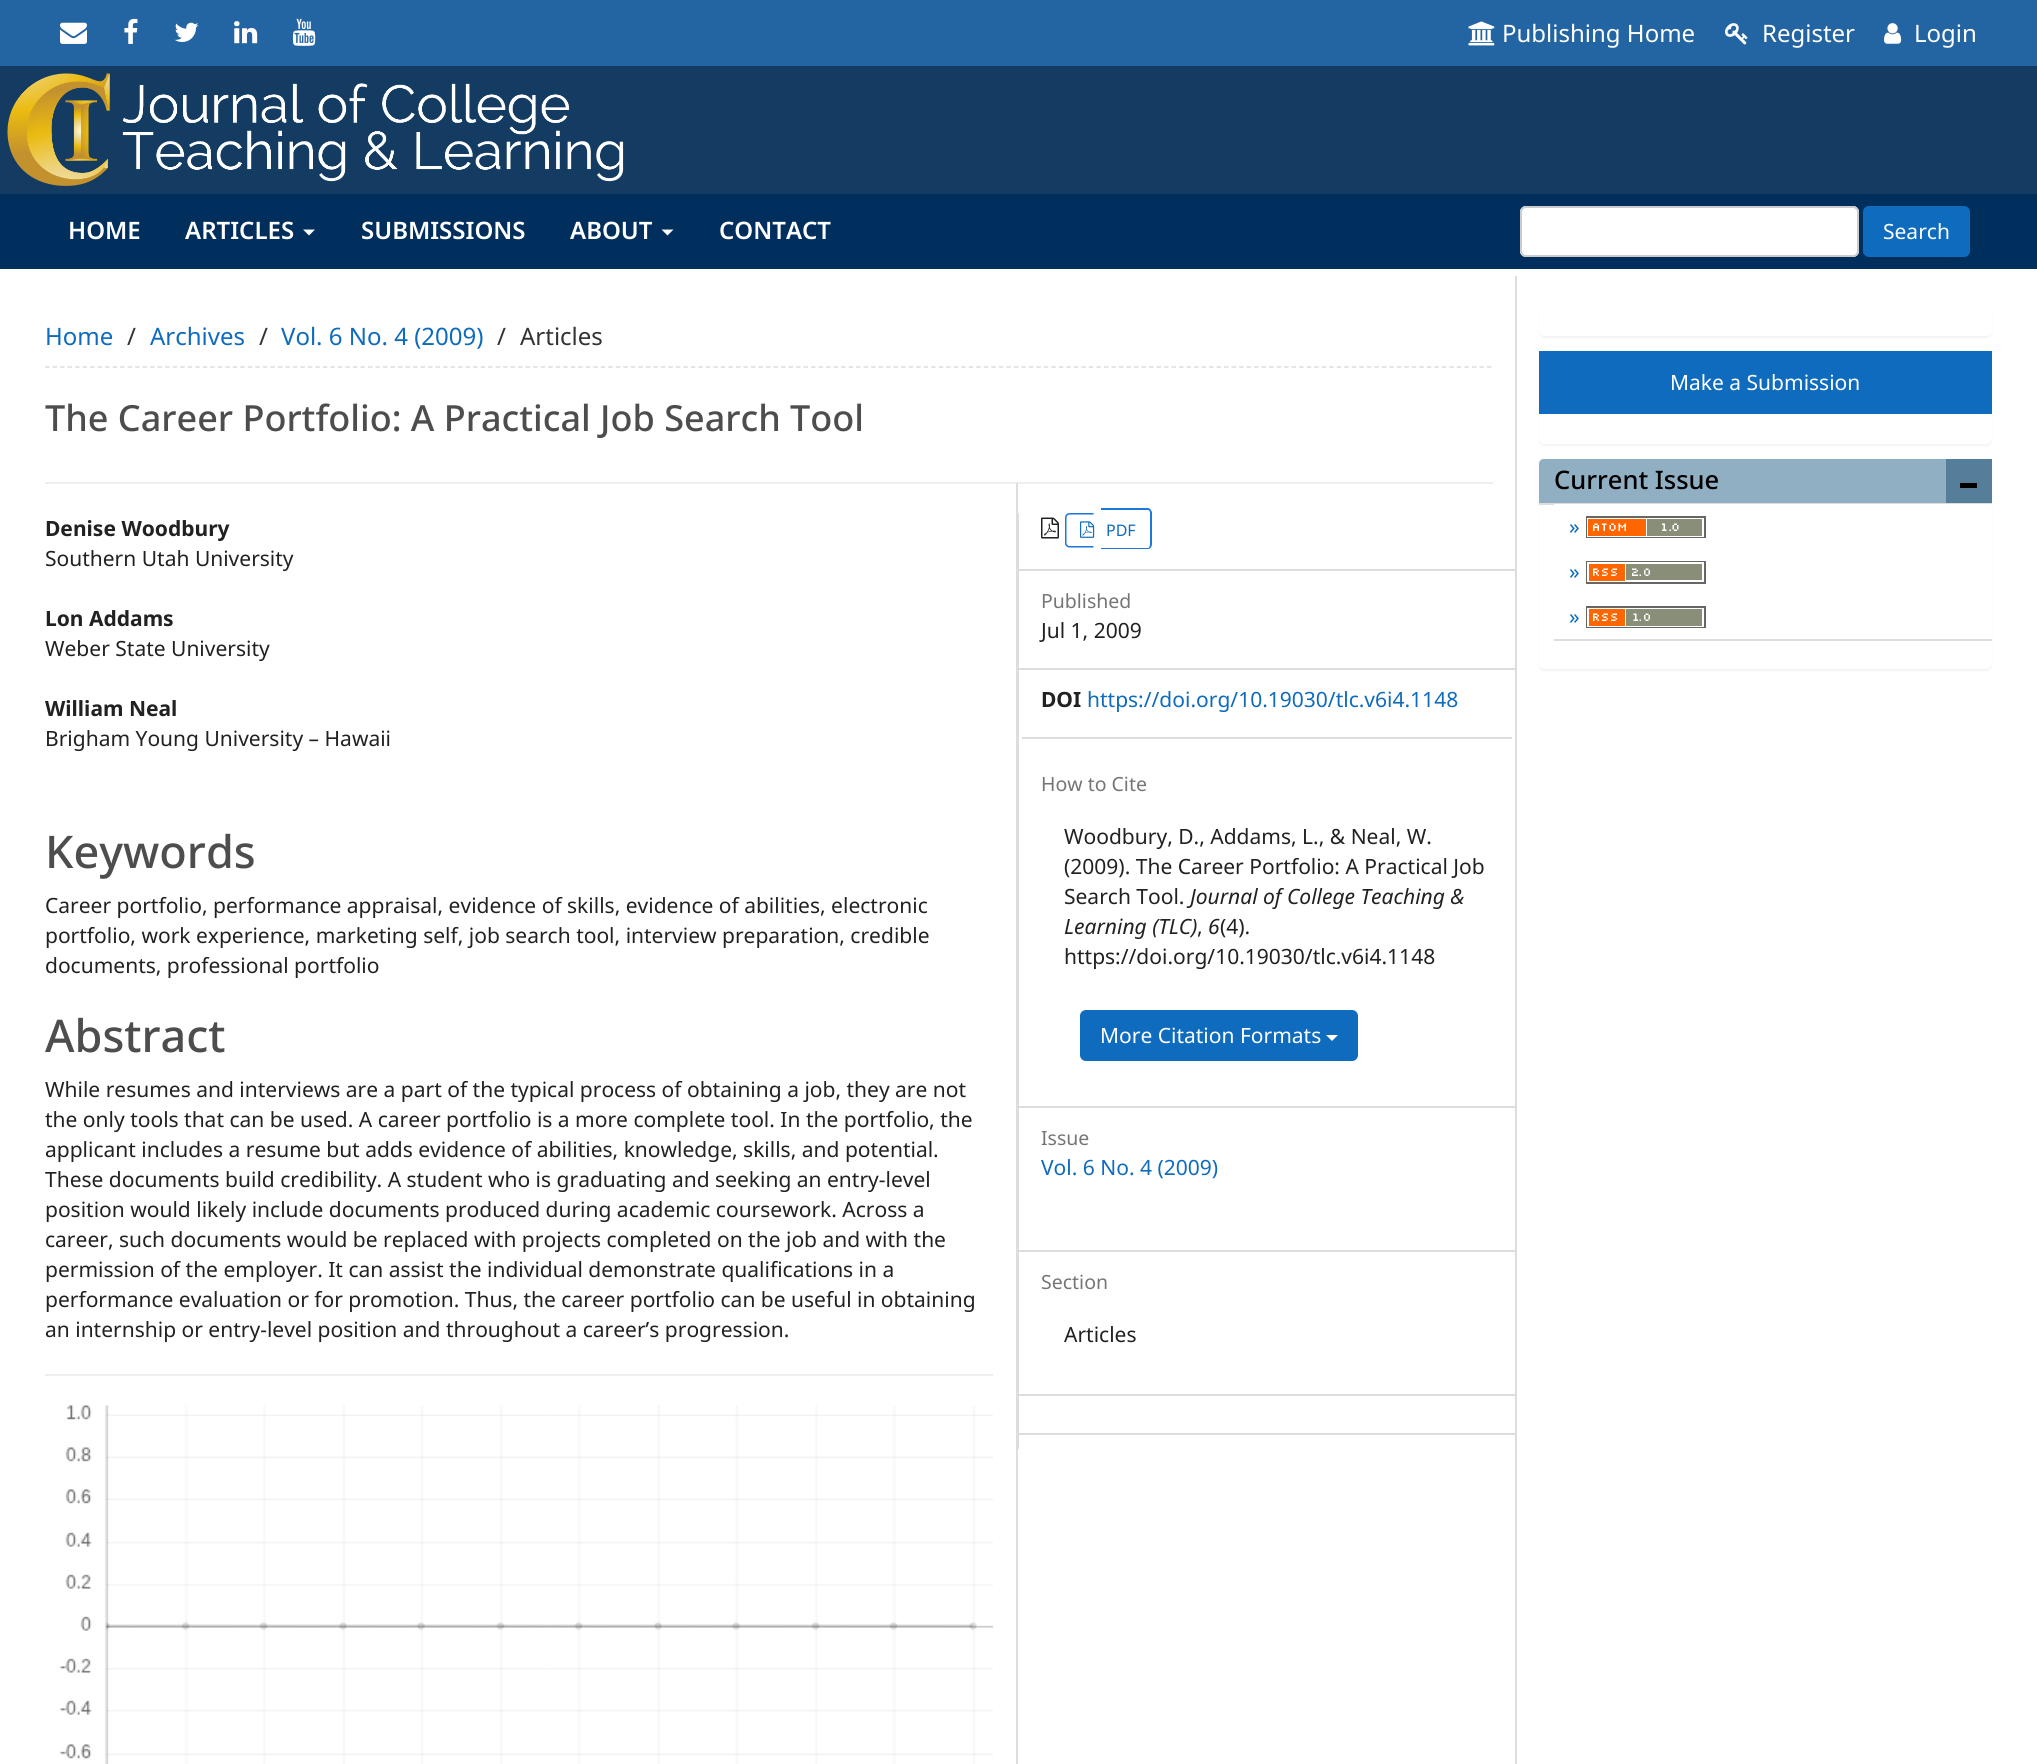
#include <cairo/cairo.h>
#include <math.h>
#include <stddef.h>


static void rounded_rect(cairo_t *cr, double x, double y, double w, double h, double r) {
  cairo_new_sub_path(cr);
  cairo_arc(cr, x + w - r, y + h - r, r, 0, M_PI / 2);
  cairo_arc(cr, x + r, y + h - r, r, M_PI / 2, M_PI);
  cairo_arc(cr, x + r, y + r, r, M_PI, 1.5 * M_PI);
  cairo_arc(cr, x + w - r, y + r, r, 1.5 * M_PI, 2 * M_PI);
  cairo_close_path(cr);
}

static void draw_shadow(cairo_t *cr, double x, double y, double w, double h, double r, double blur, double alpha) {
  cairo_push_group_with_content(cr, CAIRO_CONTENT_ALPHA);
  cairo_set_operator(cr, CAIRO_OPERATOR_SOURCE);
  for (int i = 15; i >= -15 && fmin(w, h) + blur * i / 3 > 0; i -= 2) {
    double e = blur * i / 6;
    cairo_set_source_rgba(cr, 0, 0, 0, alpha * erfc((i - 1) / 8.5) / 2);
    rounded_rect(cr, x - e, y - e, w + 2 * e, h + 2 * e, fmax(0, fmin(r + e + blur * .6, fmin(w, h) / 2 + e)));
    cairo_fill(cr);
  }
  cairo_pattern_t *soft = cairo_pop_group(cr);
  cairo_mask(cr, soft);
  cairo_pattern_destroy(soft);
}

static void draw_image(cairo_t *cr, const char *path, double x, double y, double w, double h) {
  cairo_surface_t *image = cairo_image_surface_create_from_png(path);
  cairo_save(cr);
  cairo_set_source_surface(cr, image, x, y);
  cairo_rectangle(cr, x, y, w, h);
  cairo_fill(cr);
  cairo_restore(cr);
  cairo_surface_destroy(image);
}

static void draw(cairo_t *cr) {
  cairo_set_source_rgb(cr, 1, 1, 1);
  cairo_paint(cr);
  cairo_set_source_rgb(cr, 35 / 255.0, 100 / 255.0, 162 / 255.0);
  cairo_rectangle(cr, 0, 0, 2037, 66);
  cairo_fill(cr);
  draw_image(cr, "images/1.png", 60, 22, 27, 22);
  draw_image(cr, "images/2.png", 124, 18, 14, 26);
  draw_image(cr, "images/3.png", 174, 22, 25, 20);
  draw_image(cr, "images/4.png", 234, 21, 24, 23);
  draw_image(cr, "images/5.png", 292, 18, 24, 28);
  draw_image(cr, "images/6.png", 1468, 21, 27, 25);
  draw_image(cr, "images/7.png", 1725, 23, 23, 22);
  draw_image(cr, "images/8.png", 1884, 23, 18, 21);
  cairo_set_source_rgb(cr, 20 / 255.0, 60 / 255.0, 98 / 255.0);
  cairo_rectangle(cr, 0, 66, 2037, 128);
  cairo_fill(cr);
  draw_image(cr, "images/9.png", 7, 73, 617, 113);
  cairo_set_source_rgb(cr, 0, 47 / 255.0, 93 / 255.0);
  cairo_rectangle(cr, 0, 194, 2037, 75);
  cairo_fill(cr);
  cairo_set_source_rgb(cr, 1, 1, 1);
  cairo_new_path(cr);
  cairo_move_to(cr, 303, 229.5);
  cairo_line_to(cr, 315, 229.5);
  cairo_line_to(cr, 309, 235.5);
  cairo_close_path(cr);
  cairo_fill(cr);
  cairo_new_path(cr);
  cairo_move_to(cr, 661.5, 229.5);
  cairo_line_to(cr, 673.5, 229.5);
  cairo_line_to(cr, 667.5, 235.5);
  cairo_close_path(cr);
  cairo_fill(cr);
  rounded_rect(cr, 1520, 206, 339, 51, 6);
  cairo_fill(cr);
  cairo_set_source_rgb(cr, 236 / 255.0, 236 / 255.0, 236 / 255.0);
  cairo_new_path(cr);
  cairo_move_to(cr, 1526, 208);
  cairo_line_to(cr, 1852, 208);
  cairo_curve_to(cr, 1855, 208, 1857, 211, 1857, 213);
  cairo_curve_to(cr, 1857, 210, 1855, 207, 1852, 207);
  cairo_line_to(cr, 1526, 207);
  cairo_curve_to(cr, 1523, 207, 1521, 210, 1521, 213);
  cairo_curve_to(cr, 1521, 211, 1523, 208, 1526, 208);
  cairo_close_path(cr);
  cairo_fill(cr);
  rounded_rect(cr, 1521, 207, 337, 49, 5);
  cairo_set_source_rgb(cr, 204 / 255.0, 204 / 255.0, 204 / 255.0);
  cairo_stroke(cr);
  cairo_set_source_rgb(cr, 14 / 255.0, 107 / 255.0, 189 / 255.0);
  rounded_rect(cr, 1864, 207, 105, 49, 5);
  cairo_fill_preserve(cr);
  cairo_stroke(cr);
  cairo_set_source_rgb(cr, 221 / 255.0, 221 / 255.0, 221 / 255.0);
  cairo_rectangle(cr, 1515, 276, 2, 1488);
  cairo_fill(cr);
  cairo_new_path(cr);
  cairo_move_to(cr, 45, 367);
  cairo_line_to(cr, 1492.5, 367);
  cairo_set_line_width(cr, 1.5);
  cairo_set_dash(cr, (double[]){4.5, 3.01}, 2, 0);
  cairo_stroke(cr);
  cairo_set_source_rgb(cr, 238 / 255.0, 238 / 255.0, 238 / 255.0);
  cairo_rectangle(cr, 45, 482, 1448, 2);
  cairo_fill(cr);
  cairo_set_source_rgb(cr, 221 / 255.0, 221 / 255.0, 221 / 255.0);
  cairo_rectangle(cr, 1016, 483, 2, 1281);
  cairo_fill(cr);
  cairo_set_source_rgb(cr, 238 / 255.0, 238 / 255.0, 238 / 255.0);
  cairo_rectangle(cr, 45, 1374, 948, 2);
  cairo_fill(cr);
  draw_image(cr, "images/10.png", 59, 1405, 934, 359);
  cairo_set_source_rgb(cr, 221 / 255.0, 221 / 255.0, 221 / 255.0);
  cairo_rectangle(cr, 1018, 513, 1, 936);
  cairo_fill(cr);
  cairo_rectangle(cr, 1019, 569, 496, 2);
  cairo_fill(cr);
  draw_image(cr, "images/11.png", 1041, 517, 18, 22);
  cairo_set_source_rgb(cr, 32 / 255.0, 119 / 255.0, 219 / 255.0);
  cairo_set_fill_rule(cr, CAIRO_FILL_RULE_EVEN_ODD);
  cairo_new_path(cr);
  cairo_move_to(cr, 1069.5, 513);
  cairo_line_to(cr, 1093.5, 513);
  cairo_line_to(cr, 1093.5, 547.5);
  cairo_line_to(cr, 1069.5, 547.5);
  cairo_curve_to(cr, 1067, 547.5, 1065, 545.5, 1065, 543);
  cairo_line_to(cr, 1065, 517.5);
  cairo_curve_to(cr, 1065, 515, 1067, 513, 1069.5, 513);
  cairo_close_path(cr);
  cairo_move_to(cr, 1069.5, 514.5);
  cairo_line_to(cr, 1093.5, 514.5);
  cairo_line_to(cr, 1093.5, 546);
  cairo_line_to(cr, 1069.5, 546);
  cairo_curve_to(cr, 1068, 546, 1066.5, 544.5, 1066.5, 543);
  cairo_line_to(cr, 1066.5, 517.5);
  cairo_curve_to(cr, 1066.5, 516, 1068, 514.5, 1069.5, 514.5);
  cairo_close_path(cr);
  cairo_fill(cr);
  draw_image(cr, "images/12.png", 1080, 521, 15, 17);
  cairo_new_path(cr);
  cairo_move_to(cr, 1101, 508);
  cairo_line_to(cr, 1148, 508);
  cairo_curve_to(cr, 1150, 508, 1152, 511, 1152, 513);
  cairo_line_to(cr, 1152, 544);
  cairo_curve_to(cr, 1152, 547, 1150, 549, 1148, 549);
  cairo_line_to(cr, 1101, 549);
  cairo_close_path(cr);
  cairo_move_to(cr, 1101, 510);
  cairo_line_to(cr, 1148, 510);
  cairo_curve_to(cr, 1149, 510, 1150, 511, 1150, 513);
  cairo_line_to(cr, 1150, 544);
  cairo_curve_to(cr, 1150, 546, 1149, 548, 1148, 548);
  cairo_line_to(cr, 1101, 548);
  cairo_close_path(cr);
  cairo_fill(cr);
  cairo_set_source_rgb(cr, 221 / 255.0, 221 / 255.0, 221 / 255.0);
  cairo_rectangle(cr, 1019, 668, 496, 2);
  cairo_fill(cr);
  cairo_rectangle(cr, 1022, 737, 490, 2);
  cairo_fill(cr);
  cairo_rectangle(cr, 1019, 1433, 496, 2);
  cairo_fill(cr);
  cairo_rectangle(cr, 1019, 1106, 496, 2);
  cairo_fill(cr);
  cairo_set_source_rgb(cr, 14 / 255.0, 107 / 255.0, 189 / 255.0);
  rounded_rect(cr, 1081, 1011, 276, 49, 5);
  cairo_fill_preserve(cr);
  cairo_set_line_width(cr, 2);
  cairo_set_dash(cr, NULL, 0, 0);
  cairo_stroke(cr);
  cairo_set_source_rgb(cr, 1, 1, 1);
  cairo_set_fill_rule(cr, CAIRO_FILL_RULE_WINDING);
  cairo_new_path(cr);
  cairo_move_to(cr, 1326, 1035);
  cairo_line_to(cr, 1338, 1035);
  cairo_line_to(cr, 1332, 1041);
  cairo_close_path(cr);
  cairo_fill(cr);
  cairo_set_source_rgb(cr, 221 / 255.0, 221 / 255.0, 221 / 255.0);
  cairo_rectangle(cr, 1019, 1250, 496, 2);
  cairo_fill(cr);
  cairo_rectangle(cr, 1019, 1394, 496, 2);
  cairo_fill(cr);
  cairo_set_source_rgb(cr, 0, 0, 0);
  draw_shadow(cr, 1539, 308, 453, 30, 6, 1, 0.05);
  cairo_set_source_rgb(cr, 1, 1, 1);
  rounded_rect(cr, 1539, 306, 453, 30, 6);
  cairo_fill(cr);
  cairo_set_source_rgb(cr, 0, 0, 0);
  draw_shadow(cr, 1539, 353, 453, 93, 6, 1, 0.05);
  cairo_set_source_rgb(cr, 1, 1, 1);
  rounded_rect(cr, 1539, 351, 453, 93, 6);
  cairo_fill(cr);
  cairo_set_source_rgb(cr, 14 / 255.0, 107 / 255.0, 189 / 255.0);
  cairo_rectangle(cr, 1539, 351, 453, 63);
  cairo_fill(cr);
  cairo_set_source_rgb(cr, 0, 0, 0);
  draw_shadow(cr, 1539, 461, 453, 210, 6, 1, 0.05);
  cairo_set_source_rgb(cr, 1, 1, 1);
  rounded_rect(cr, 1539, 459, 453, 210, 6);
  cairo_fill(cr);
  cairo_set_source_rgb(cr, 145 / 255.0, 175 / 255.0, 195 / 255.0);
  cairo_new_path(cr);
  cairo_move_to(cr, 1544, 459);
  cairo_line_to(cr, 1987, 459);
  cairo_curve_to(cr, 1990, 459, 1992, 461, 1992, 464);
  cairo_line_to(cr, 1992, 504);
  cairo_line_to(cr, 1539, 504);
  cairo_line_to(cr, 1539, 464);
  cairo_curve_to(cr, 1539, 461, 1541, 459, 1544, 459);
  cairo_close_path(cr);
  cairo_fill(cr);
  cairo_set_source_rgb(cr, 221 / 255.0, 221 / 255.0, 221 / 255.0);
  cairo_rectangle(cr, 1539, 503, 453, 2);
  cairo_fill(cr);
  cairo_set_source_rgb(cr, 84 / 255.0, 126 / 255.0, 154 / 255.0);
  cairo_rectangle(cr, 1946, 459, 46, 44);
  cairo_fill(cr);
  cairo_set_source_rgb(cr, 0, 0, 0);
  cairo_rectangle(cr, 1960, 483, 17, 5);
  cairo_fill(cr);
  cairo_set_source_rgb(cr, 1, 1, 1);
  cairo_rectangle(cr, 1554, 504, 438, 1);
  cairo_fill(cr);
  draw_image(cr, "images/13.png", 1586, 516, 120, 22);
  draw_image(cr, "images/14.png", 1586, 561, 120, 23);
  cairo_set_source_rgb(cr, 221 / 255.0, 221 / 255.0, 221 / 255.0);
  cairo_rectangle(cr, 1554, 639, 438, 2);
  cairo_fill(cr);
  draw_image(cr, "images/15.png", 1586, 606, 120, 22);
  cairo_select_font_face(cr, "Noto Sans", CAIRO_FONT_SLANT_NORMAL, CAIRO_FONT_WEIGHT_NORMAL);
  cairo_set_font_size(cr, 24);
  cairo_set_source_rgb(cr, 1, 1, 1);
  cairo_move_to(cr, 1502, 42);
  cairo_show_text(cr, "Publishing Home");
  cairo_move_to(cr, 1762, 42);
  cairo_show_text(cr, "Register");
  cairo_move_to(cr, 1914, 42);
  cairo_show_text(cr, "Login");
  cairo_select_font_face(cr, "Noto Sans SemiBold", CAIRO_FONT_SLANT_NORMAL, CAIRO_FONT_WEIGHT_NORMAL);
  cairo_move_to(cr, 68, 239);
  cairo_show_text(cr, "HOME");
  cairo_move_to(cr, 185, 239);
  cairo_show_text(cr, "ARTICLES");
  cairo_move_to(cr, 361, 239);
  cairo_show_text(cr, "SUBMISSIONS");
  cairo_move_to(cr, 570, 239);
  cairo_show_text(cr, "ABOUT");
  cairo_move_to(cr, 719, 239);
  cairo_show_text(cr, "CONTACT");
  cairo_select_font_face(cr, "Noto Sans", CAIRO_FONT_SLANT_NORMAL, CAIRO_FONT_WEIGHT_NORMAL);
  cairo_set_font_size(cr, 21);
  cairo_move_to(cr, 1883, 239);
  cairo_show_text(cr, "Search");
  cairo_set_font_size(cr, 24);
  cairo_set_source_rgb(cr, 14 / 255.0, 107 / 255.0, 189 / 255.0);
  cairo_move_to(cr, 45, 345);
  cairo_show_text(cr, "Home");
  cairo_set_source_rgb(cr, 51 / 255.0, 51 / 255.0, 51 / 255.0);
  cairo_move_to(cr, 127, 345);
  cairo_show_text(cr, "/");
  cairo_set_source_rgb(cr, 14 / 255.0, 107 / 255.0, 189 / 255.0);
  cairo_move_to(cr, 150, 345);
  cairo_show_text(cr, "Archives");
  cairo_set_source_rgb(cr, 51 / 255.0, 51 / 255.0, 51 / 255.0);
  cairo_move_to(cr, 259, 345);
  cairo_show_text(cr, "/");
  cairo_set_source_rgb(cr, 14 / 255.0, 107 / 255.0, 189 / 255.0);
  cairo_move_to(cr, 281, 345);
  cairo_show_text(cr, "Vol. 6 No. 4 (2009)");
  cairo_set_source_rgb(cr, 51 / 255.0, 51 / 255.0, 51 / 255.0);
  cairo_move_to(cr, 497, 345);
  cairo_show_text(cr, "/");
  cairo_move_to(cr, 520, 345);
  cairo_show_text(cr, "Articles");
  cairo_select_font_face(cr, "Noto Sans Medium", CAIRO_FONT_SLANT_NORMAL, CAIRO_FONT_WEIGHT_NORMAL);
  cairo_set_font_size(cr, 36);
  cairo_set_source_rgb(cr, 77 / 255.0, 77 / 255.0, 77 / 255.0);
  cairo_move_to(cr, 45, 431);
  cairo_show_text(cr, "The Career Portfolio: A Practical Job Search Tool");
  cairo_select_font_face(cr, "Noto Sans", CAIRO_FONT_SLANT_NORMAL, CAIRO_FONT_WEIGHT_BOLD);
  cairo_set_font_size(cr, 21);
  cairo_set_source_rgb(cr, 33 / 255.0, 33 / 255.0, 33 / 255.0);
  cairo_move_to(cr, 45, 536);
  cairo_show_text(cr, "Denise Woodbury");
  cairo_select_font_face(cr, "Noto Sans", CAIRO_FONT_SLANT_NORMAL, CAIRO_FONT_WEIGHT_NORMAL);
  cairo_move_to(cr, 45, 566);
  cairo_show_text(cr, "Southern Utah University");
  cairo_select_font_face(cr, "Noto Sans", CAIRO_FONT_SLANT_NORMAL, CAIRO_FONT_WEIGHT_BOLD);
  cairo_move_to(cr, 45, 626);
  cairo_show_text(cr, "Lon Addams");
  cairo_select_font_face(cr, "Noto Sans", CAIRO_FONT_SLANT_NORMAL, CAIRO_FONT_WEIGHT_NORMAL);
  cairo_move_to(cr, 45, 656);
  cairo_show_text(cr, "Weber State University");
  cairo_select_font_face(cr, "Noto Sans", CAIRO_FONT_SLANT_NORMAL, CAIRO_FONT_WEIGHT_BOLD);
  cairo_move_to(cr, 45, 716);
  cairo_show_text(cr, "William Neal");
  cairo_select_font_face(cr, "Noto Sans", CAIRO_FONT_SLANT_NORMAL, CAIRO_FONT_WEIGHT_NORMAL);
  cairo_move_to(cr, 45, 746);
  cairo_show_text(cr, "Brigham Young University – Hawaii");
  cairo_select_font_face(cr, "Noto Sans Medium", CAIRO_FONT_SLANT_NORMAL, CAIRO_FONT_WEIGHT_NORMAL);
  cairo_set_font_size(cr, 45);
  cairo_set_source_rgb(cr, 77 / 255.0, 77 / 255.0, 77 / 255.0);
  cairo_move_to(cr, 45, 868);
  cairo_show_text(cr, "Keywords");
  cairo_select_font_face(cr, "Noto Sans", CAIRO_FONT_SLANT_NORMAL, CAIRO_FONT_WEIGHT_NORMAL);
  cairo_set_font_size(cr, 21);
  cairo_set_source_rgb(cr, 33 / 255.0, 33 / 255.0, 33 / 255.0);
  cairo_move_to(cr, 45, 913);
  cairo_show_text(cr, "Career portfolio, performance appraisal, evidence of skills, evidence of abilities, electronic");
  cairo_move_to(cr, 45, 943);
  cairo_show_text(cr, "portfolio, work experience, marketing self, job search tool, interview preparation, credible");
  cairo_move_to(cr, 45, 973);
  cairo_show_text(cr, "documents, professional portfolio");
  cairo_select_font_face(cr, "Noto Sans Medium", CAIRO_FONT_SLANT_NORMAL, CAIRO_FONT_WEIGHT_NORMAL);
  cairo_set_font_size(cr, 45);
  cairo_set_source_rgb(cr, 77 / 255.0, 77 / 255.0, 77 / 255.0);
  cairo_move_to(cr, 45, 1052);
  cairo_show_text(cr, "Abstract");
  cairo_select_font_face(cr, "Noto Sans", CAIRO_FONT_SLANT_NORMAL, CAIRO_FONT_WEIGHT_NORMAL);
  cairo_set_font_size(cr, 21);
  cairo_set_source_rgb(cr, 33 / 255.0, 33 / 255.0, 33 / 255.0);
  cairo_move_to(cr, 45, 1097);
  cairo_show_text(cr, "While resumes and interviews are a part of the typical process of obtaining a job, they are not");
  cairo_move_to(cr, 45, 1127);
  cairo_show_text(cr, "the only tools that can be used. A career portfolio is a more complete tool. In the portfolio, the");
  cairo_move_to(cr, 45, 1157);
  cairo_show_text(cr, "applicant includes a resume but adds evidence of abilities, knowledge, skills, and potential.");
  cairo_move_to(cr, 45, 1187);
  cairo_show_text(cr, "These documents build credibility. A student who is graduating and seeking an entry-level");
  cairo_move_to(cr, 45, 1217);
  cairo_show_text(cr, "position would likely include documents produced during academic coursework. Across a");
  cairo_move_to(cr, 45, 1247);
  cairo_show_text(cr, "career, such documents would be replaced with projects completed on the job and with the");
  cairo_move_to(cr, 45, 1277);
  cairo_show_text(cr, "permission of the employer. It can assist the individual demonstrate qualifications in a");
  cairo_move_to(cr, 45, 1307);
  cairo_show_text(cr, "performance evaluation or for promotion. Thus, the career portfolio can be useful in obtaining");
  cairo_move_to(cr, 45, 1337);
  cairo_show_text(cr, "an internship or entry-level position and throughout a career’s progression.");
  cairo_set_font_size(cr, 16);
  cairo_set_source_rgb(cr, 14 / 255.0, 107 / 255.0, 189 / 255.0);
  cairo_move_to(cr, 1106, 536);
  cairo_show_text(cr, "PDF");
  cairo_set_font_size(cr, 19.5);
  cairo_set_source_rgb(cr, 117 / 255.0, 117 / 255.0, 117 / 255.0);
  cairo_move_to(cr, 1041, 608);
  cairo_show_text(cr, "Published");
  cairo_set_font_size(cr, 21);
  cairo_set_source_rgb(cr, 33 / 255.0, 33 / 255.0, 33 / 255.0);
  cairo_move_to(cr, 1041, 638);
  cairo_show_text(cr, "Jul 1, 2009");
  cairo_select_font_face(cr, "Noto Sans", CAIRO_FONT_SLANT_NORMAL, CAIRO_FONT_WEIGHT_BOLD);
  cairo_move_to(cr, 1041, 707);
  cairo_show_text(cr, "DOI");
  cairo_select_font_face(cr, "Noto Sans", CAIRO_FONT_SLANT_NORMAL, CAIRO_FONT_WEIGHT_NORMAL);
  cairo_set_source_rgb(cr, 14 / 255.0, 107 / 255.0, 189 / 255.0);
  cairo_move_to(cr, 1087, 707);
  cairo_show_text(cr, "https://doi.org/10.19030/tlc.v6i4.1148");
  cairo_set_font_size(cr, 19.5);
  cairo_set_source_rgb(cr, 117 / 255.0, 117 / 255.0, 117 / 255.0);
  cairo_move_to(cr, 1041, 791);
  cairo_show_text(cr, "How to Cite");
  cairo_set_font_size(cr, 21);
  cairo_set_source_rgb(cr, 33 / 255.0, 33 / 255.0, 33 / 255.0);
  cairo_move_to(cr, 1064, 844);
  cairo_show_text(cr, "Woodbury, D., Addams, L., & Neal, W.");
  cairo_move_to(cr, 1064, 874);
  cairo_show_text(cr, "(2009). The Career Portfolio: A Practical Job");
  cairo_move_to(cr, 1064, 904);
  cairo_show_text(cr, "Search Tool.");
  cairo_select_font_face(cr, "Noto Sans", CAIRO_FONT_SLANT_ITALIC, CAIRO_FONT_WEIGHT_NORMAL);
  cairo_move_to(cr, 1190, 904);
  cairo_show_text(cr, "Journal of College Teaching &");
  cairo_move_to(cr, 1064, 934);
  cairo_show_text(cr, "Learning (TLC)");
  cairo_select_font_face(cr, "Noto Sans", CAIRO_FONT_SLANT_NORMAL, CAIRO_FONT_WEIGHT_NORMAL);
  cairo_move_to(cr, 1197, 934);
  cairo_show_text(cr, ",");
  cairo_select_font_face(cr, "Noto Sans", CAIRO_FONT_SLANT_ITALIC, CAIRO_FONT_WEIGHT_NORMAL);
  cairo_move_to(cr, 1208, 934);
  cairo_show_text(cr, "6");
  cairo_select_font_face(cr, "Noto Sans", CAIRO_FONT_SLANT_NORMAL, CAIRO_FONT_WEIGHT_NORMAL);
  cairo_move_to(cr, 1220, 934);
  cairo_show_text(cr, "(4).");
  cairo_move_to(cr, 1064, 964);
  cairo_show_text(cr, "https://doi.org/10.19030/tlc.v6i4.1148");
  cairo_set_source_rgb(cr, 1, 1, 1);
  cairo_move_to(cr, 1100, 1043);
  cairo_show_text(cr, "More Citation Formats");
  cairo_set_font_size(cr, 19.5);
  cairo_set_source_rgb(cr, 117 / 255.0, 117 / 255.0, 117 / 255.0);
  cairo_move_to(cr, 1041, 1145);
  cairo_show_text(cr, "Issue");
  cairo_set_font_size(cr, 21);
  cairo_set_source_rgb(cr, 14 / 255.0, 107 / 255.0, 189 / 255.0);
  cairo_move_to(cr, 1041, 1175);
  cairo_show_text(cr, "Vol. 6 No. 4 (2009)");
  cairo_set_font_size(cr, 19.5);
  cairo_set_source_rgb(cr, 117 / 255.0, 117 / 255.0, 117 / 255.0);
  cairo_move_to(cr, 1041, 1289);
  cairo_show_text(cr, "Section");
  cairo_set_font_size(cr, 21);
  cairo_set_source_rgb(cr, 33 / 255.0, 33 / 255.0, 33 / 255.0);
  cairo_move_to(cr, 1064, 1342);
  cairo_show_text(cr, "Articles");
  cairo_set_source_rgb(cr, 1, 1, 1);
  cairo_move_to(cr, 1670, 390);
  cairo_show_text(cr, "Make a Submission");
  cairo_select_font_face(cr, "Noto Sans Medium", CAIRO_FONT_SLANT_NORMAL, CAIRO_FONT_WEIGHT_NORMAL);
  cairo_set_font_size(cr, 25.5);
  cairo_set_source_rgb(cr, 0, 0, 0);
  cairo_move_to(cr, 1554, 489);
  cairo_show_text(cr, "Current Issue");
  cairo_select_font_face(cr, "Noto Sans", CAIRO_FONT_SLANT_NORMAL, CAIRO_FONT_WEIGHT_NORMAL);
  cairo_set_font_size(cr, 21);
  cairo_set_source_rgb(cr, 14 / 255.0, 107 / 255.0, 189 / 255.0);
  cairo_move_to(cr, 1569, 534);
  cairo_show_text(cr, "»");
  cairo_move_to(cr, 1569, 579);
  cairo_show_text(cr, "»");
  cairo_move_to(cr, 1569, 624);
  cairo_show_text(cr, "»");
}

int main(void) {
  cairo_surface_t *surface = cairo_image_surface_create(CAIRO_FORMAT_RGB24, 2037, 1764);
  cairo_t *cr = cairo_create(surface);
  cairo_font_options_t *options = cairo_font_options_create();
  cairo_font_options_set_hint_metrics(options, CAIRO_HINT_METRICS_OFF);
  cairo_font_options_set_hint_style(options, CAIRO_HINT_STYLE_NONE);
  cairo_set_font_options(cr, options);
  cairo_set_miter_limit(cr, 4);
  draw(cr);
  cairo_surface_write_to_png(surface, "out.png");
  cairo_font_options_destroy(options);
  cairo_destroy(cr);
  cairo_surface_destroy(surface);
  return 0;
}
